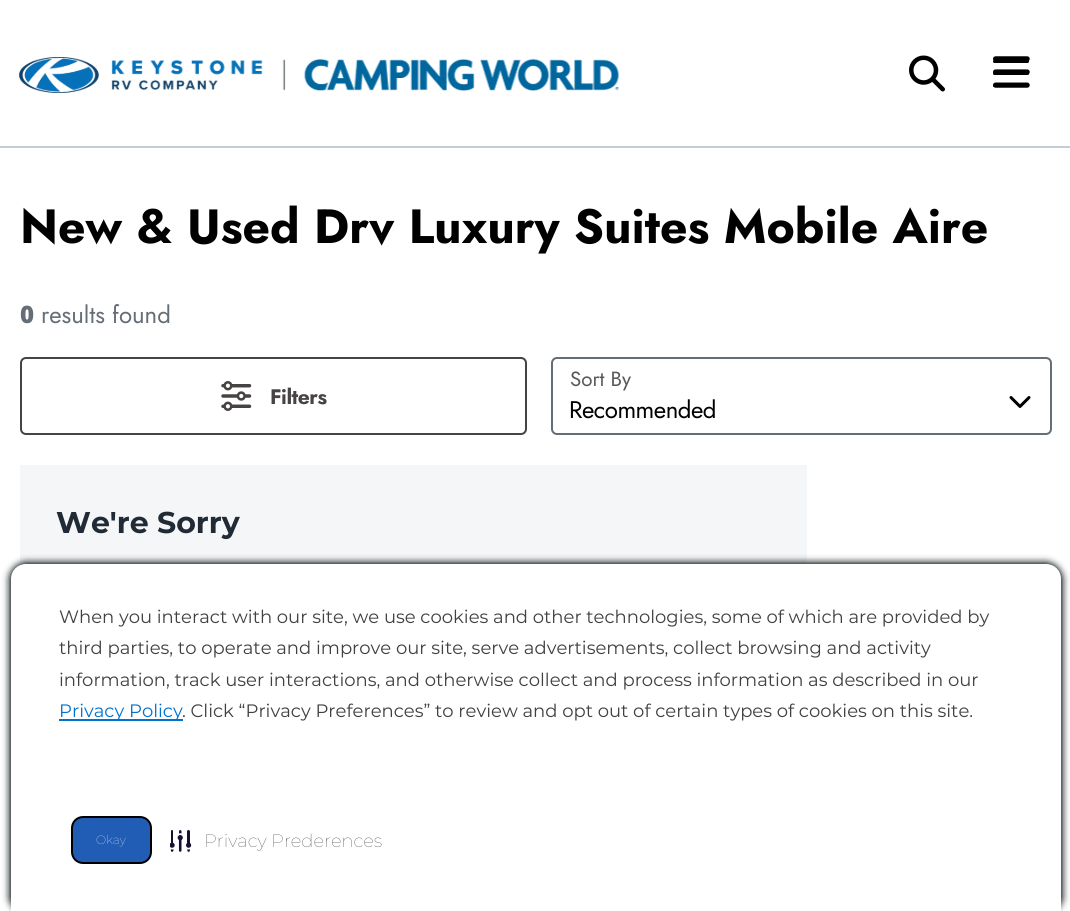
#include <cairo/cairo.h>
#include <math.h>
#include <stddef.h>


static void draw_spaced(cairo_t *cr, double x, double y, const char *s, double letter, double word) {
  cairo_move_to(cr, x, y);
  while (*s) {
    char ch[5] = {0};
    int n = 0;
    do ch[n++] = *s++; while ((*s & 0xC0) == 0x80);
    cairo_show_text(cr, ch);
    cairo_rel_move_to(cr, letter + word * (*ch == ' '), 0);
  }
}

static void rounded_rect(cairo_t *cr, double x, double y, double w, double h, double r) {
  cairo_new_sub_path(cr);
  cairo_arc(cr, x + w - r, y + h - r, r, 0, M_PI / 2);
  cairo_arc(cr, x + r, y + h - r, r, M_PI / 2, M_PI);
  cairo_arc(cr, x + r, y + r, r, M_PI, 1.5 * M_PI);
  cairo_arc(cr, x + w - r, y + r, r, 1.5 * M_PI, 2 * M_PI);
  cairo_close_path(cr);
}

static void draw_shadow(cairo_t *cr, double x, double y, double w, double h, double r, double blur, double alpha) {
  cairo_push_group_with_content(cr, CAIRO_CONTENT_ALPHA);
  cairo_set_operator(cr, CAIRO_OPERATOR_SOURCE);
  for (int i = 15; i >= -15 && fmin(w, h) + blur * i / 3 > 0; i -= 2) {
    double e = blur * i / 6;
    cairo_set_source_rgba(cr, 0, 0, 0, alpha * erfc((i - 1) / 8.5) / 2);
    rounded_rect(cr, x - e, y - e, w + 2 * e, h + 2 * e, fmax(0, fmin(r + e + blur * .6, fmin(w, h) / 2 + e)));
    cairo_fill(cr);
  }
  cairo_pattern_t *soft = cairo_pop_group(cr);
  cairo_mask(cr, soft);
  cairo_pattern_destroy(soft);
}

static void draw_image(cairo_t *cr, const char *path, double x, double y, double w, double h) {
  cairo_surface_t *image = cairo_image_surface_create_from_png(path);
  cairo_save(cr);
  cairo_set_source_surface(cr, image, x, y);
  cairo_rectangle(cr, x, y, w, h);
  cairo_fill(cr);
  cairo_restore(cr);
  cairo_surface_destroy(image);
}

static void draw(cairo_t *cr) {
  cairo_set_source_rgb(cr, 1, 1, 1);
  cairo_paint(cr);
  draw_image(cr, "images/1.png", 18, 57, 601, 36);
  draw_image(cr, "images/2.png", 909, 55, 36, 37);
  cairo_new_path(cr);
  cairo_move_to(cr, 994.5, 61.5);
  cairo_line_to(cr, 1027.5, 61.5);
  cairo_move_to(cr, 994.5, 73.5);
  cairo_line_to(cr, 1027.5, 73.5);
  cairo_move_to(cr, 994.5, 85.5);
  cairo_line_to(cr, 1027.5, 85.5);
  cairo_set_source_rgb(cr, 0, 0, 0);
  cairo_set_line_width(cr, 3);
  cairo_set_line_cap(cr, CAIRO_LINE_CAP_ROUND);
  cairo_stroke(cr);
  draw_image(cr, "images/3.png", 993, 56, 37, 32);
  cairo_set_source_rgb(cr, 196 / 255.0, 205 / 255.0, 213 / 255.0);
  cairo_rectangle(cr, 0, 146, 1070, 2);
  cairo_fill(cr);
  rounded_rect(cr, 21, 358, 505, 76, 5);
  cairo_set_source_rgb(cr, 71 / 255.0, 67 / 255.0, 66 / 255.0);
  cairo_set_line_width(cr, 2);
  cairo_set_line_cap(cr, CAIRO_LINE_CAP_BUTT);
  cairo_stroke(cr);
  draw_image(cr, "images/4.png", 221, 381, 31, 30);
  rounded_rect(cr, 552, 358, 499, 76, 5);
  cairo_set_source_rgb(cr, 101 / 255.0, 109 / 255.0, 118 / 255.0);
  cairo_stroke(cr);
  draw_image(cr, "images/5.png", 1009, 396, 22, 12);
  cairo_set_source_rgb(cr, 244 / 255.0, 246 / 255.0, 248 / 255.0);
  cairo_rectangle(cr, 20, 465, 787, 101);
  cairo_fill(cr);
  cairo_set_source_rgb(cr, 25 / 255.0, 34 / 255.0, 36 / 255.0);
  draw_shadow(cr, 11, 564, 1050, 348, 15, 4, 1);
  draw_shadow(cr, 11, 564, 1050, 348, 15, 4, 1);
  cairo_set_source_rgb(cr, 1, 1, 1);
  cairo_new_path(cr);
  cairo_move_to(cr, 26, 564);
  cairo_line_to(cr, 1046, 564);
  cairo_curve_to(cr, 1054.5, 564, 1061, 570.5, 1061, 579);
  cairo_line_to(cr, 1061, 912);
  cairo_line_to(cr, 11, 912);
  cairo_line_to(cr, 11, 579);
  cairo_curve_to(cr, 11, 570.5, 17.5, 564, 26, 564);
  cairo_close_path(cr);
  cairo_fill(cr);
  cairo_set_source_rgb(cr, 0, 115 / 255.0, 206 / 255.0);
  cairo_rectangle(cr, 59, 719, 124, 2);
  cairo_fill(cr);
  cairo_set_source_rgb(cr, 34 / 255.0, 93 / 255.0, 181 / 255.0);
  rounded_rect(cr, 72, 817, 79, 46, 11);
  cairo_fill_preserve(cr);
  cairo_set_source_rgb(cr, 0, 0, 0);
  cairo_stroke(cr);
  draw_image(cr, "images/6.png", 170, 830, 22, 22);
  cairo_select_font_face(cr, "Jost", CAIRO_FONT_SLANT_NORMAL, CAIRO_FONT_WEIGHT_BOLD);
  cairo_set_font_size(cr, 48);
  cairo_move_to(cr, 20, 243);
  cairo_show_text(cr, "New & Used Drv Luxury Suites Mobile Aire");
  cairo_select_font_face(cr, "Noto Sans Black", CAIRO_FONT_SLANT_NORMAL, CAIRO_FONT_WEIGHT_NORMAL);
  cairo_set_font_size(cr, 24);
  cairo_set_source_rgb(cr, 101 / 255.0, 109 / 255.0, 118 / 255.0);
  cairo_move_to(cr, 20, 323);
  cairo_show_text(cr, "0");
  cairo_select_font_face(cr, "Jost", CAIRO_FONT_SLANT_NORMAL, CAIRO_FONT_WEIGHT_NORMAL);
  cairo_move_to(cr, 41, 323);
  cairo_show_text(cr, "results found");
  cairo_select_font_face(cr, "Jost", CAIRO_FONT_SLANT_NORMAL, CAIRO_FONT_WEIGHT_BOLD);
  cairo_set_font_size(cr, 21);
  cairo_set_source_rgb(cr, 71 / 255.0, 67 / 255.0, 66 / 255.0);
  draw_spaced(cr, 270, 404, "Filters", -0.5, 0);
  cairo_select_font_face(cr, "Jost", CAIRO_FONT_SLANT_NORMAL, CAIRO_FONT_WEIGHT_NORMAL);
  cairo_set_font_size(cr, 20.5);
  cairo_set_source_rgb(cr, 89 / 255.0, 89 / 255.0, 89 / 255.0);
  cairo_move_to(cr, 570, 386);
  cairo_show_text(cr, "Sort By");
  cairo_set_font_size(cr, 24);
  cairo_set_source_rgb(cr, 0, 0, 0);
  draw_spaced(cr, 569, 418, "Recommended", -0.5, 0);
  cairo_select_font_face(cr, "Montserrat", CAIRO_FONT_SLANT_NORMAL, CAIRO_FONT_WEIGHT_BOLD);
  cairo_set_font_size(cr, 30);
  cairo_set_source_rgb(cr, 33 / 255.0, 43 / 255.0, 54 / 255.0);
  cairo_move_to(cr, 56, 533);
  cairo_show_text(cr, "We're Sorry");
  cairo_select_font_face(cr, "Montserrat", CAIRO_FONT_SLANT_NORMAL, CAIRO_FONT_WEIGHT_NORMAL);
  cairo_set_font_size(cr, 18);
  cairo_set_source_rgb(cr, 64 / 255.0, 64 / 255.0, 64 / 255.0);
  cairo_move_to(cr, 59, 623);
  cairo_show_text(cr, "When you interact with our site, we use cookies and other technologies, some of which are provided by");
  cairo_move_to(cr, 59, 654);
  cairo_show_text(cr, "third parties, to operate and improve our site, serve advertisements, collect browsing and activity");
  cairo_move_to(cr, 59, 686);
  cairo_show_text(cr, "information, track user interactions, and otherwise collect and process information as described in our");
  cairo_set_source_rgb(cr, 0, 115 / 255.0, 206 / 255.0);
  cairo_move_to(cr, 59, 717);
  cairo_show_text(cr, "Privacy Policy");
  cairo_set_source_rgb(cr, 64 / 255.0, 64 / 255.0, 64 / 255.0);
  cairo_move_to(cr, 182, 717);
  cairo_show_text(cr, ". Click “Privacy Preferences” to review and opt out of certain types of cookies on this site.");
  cairo_select_font_face(cr, "Montserrat Thin", CAIRO_FONT_SLANT_NORMAL, CAIRO_FONT_WEIGHT_NORMAL);
  cairo_set_font_size(cr, 12);
  cairo_set_source_rgb(cr, 1, 1, 1);
  cairo_move_to(cr, 96, 844);
  cairo_show_text(cr, "Okay");
  cairo_set_font_size(cr, 18);
  cairo_set_source_rgb(cr, 64 / 255.0, 64 / 255.0, 64 / 255.0);
  cairo_move_to(cr, 204, 847);
  cairo_show_text(cr, "Privacy Prederences");
}

int main(void) {
  cairo_surface_t *surface = cairo_image_surface_create(CAIRO_FORMAT_RGB24, 1070, 911);
  cairo_t *cr = cairo_create(surface);
  cairo_font_options_t *options = cairo_font_options_create();
  cairo_font_options_set_hint_metrics(options, CAIRO_HINT_METRICS_OFF);
  cairo_font_options_set_hint_style(options, CAIRO_HINT_STYLE_NONE);
  cairo_set_font_options(cr, options);
  cairo_set_miter_limit(cr, 4);
  draw(cr);
  cairo_surface_write_to_png(surface, "out.png");
  cairo_font_options_destroy(options);
  cairo_destroy(cr);
  cairo_surface_destroy(surface);
  return 0;
}
